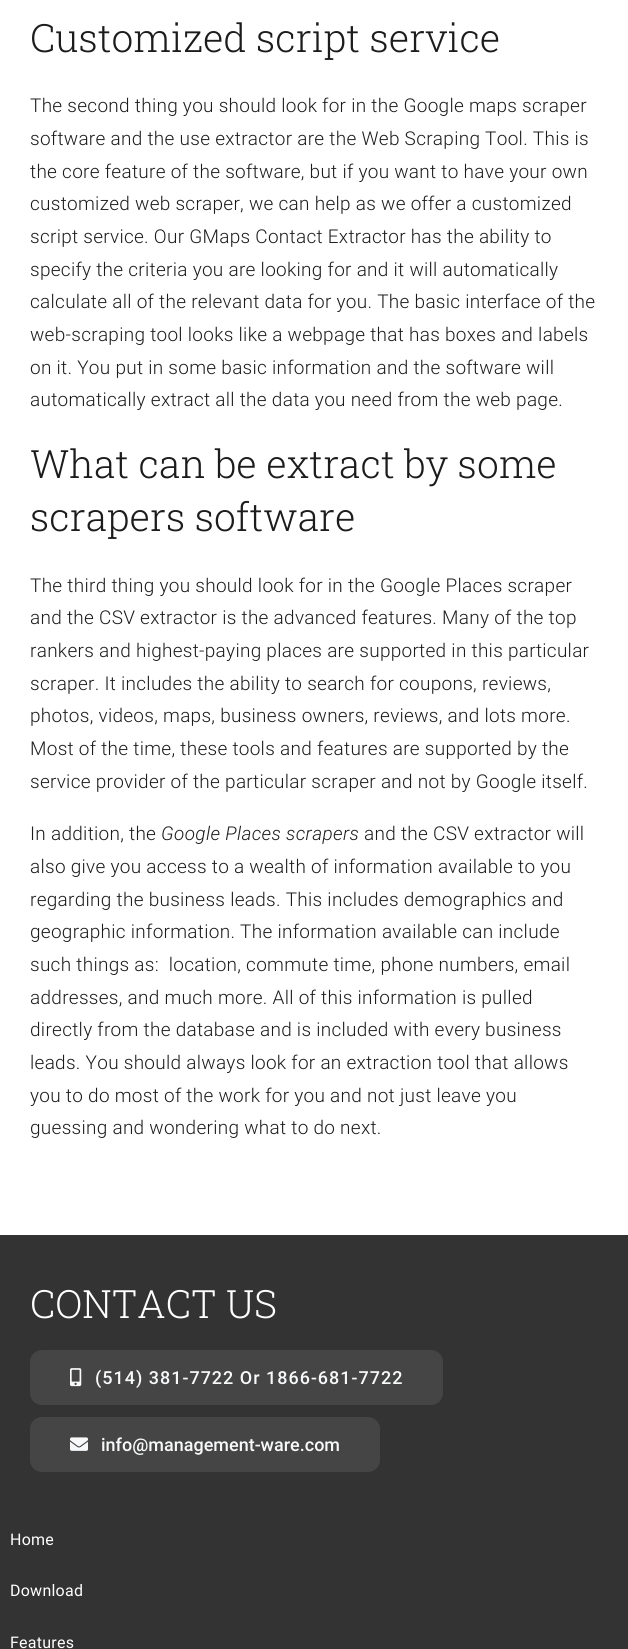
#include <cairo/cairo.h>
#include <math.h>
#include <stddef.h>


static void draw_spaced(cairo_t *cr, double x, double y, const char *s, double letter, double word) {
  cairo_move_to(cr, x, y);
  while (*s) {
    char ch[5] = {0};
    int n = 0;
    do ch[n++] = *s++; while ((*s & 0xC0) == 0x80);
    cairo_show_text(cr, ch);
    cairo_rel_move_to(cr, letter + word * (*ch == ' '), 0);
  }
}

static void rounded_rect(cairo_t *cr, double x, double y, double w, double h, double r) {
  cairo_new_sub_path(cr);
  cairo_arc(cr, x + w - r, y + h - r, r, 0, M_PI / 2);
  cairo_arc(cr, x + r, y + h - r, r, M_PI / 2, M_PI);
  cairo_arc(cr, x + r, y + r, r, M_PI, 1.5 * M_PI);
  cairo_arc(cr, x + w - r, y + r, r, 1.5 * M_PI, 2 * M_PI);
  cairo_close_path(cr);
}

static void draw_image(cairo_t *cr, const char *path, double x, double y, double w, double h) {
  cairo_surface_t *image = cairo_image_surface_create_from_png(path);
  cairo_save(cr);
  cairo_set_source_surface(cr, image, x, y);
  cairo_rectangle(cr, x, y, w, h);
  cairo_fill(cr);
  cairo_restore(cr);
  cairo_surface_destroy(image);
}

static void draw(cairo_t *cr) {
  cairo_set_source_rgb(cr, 1, 1, 1);
  cairo_paint(cr);
  cairo_set_source_rgb(cr, 51 / 255.0, 51 / 255.0, 51 / 255.0);
  cairo_rectangle(cr, 0, 1235, 628, 414);
  cairo_fill(cr);
  cairo_set_source_rgb(cr, 69 / 255.0, 69 / 255.0, 69 / 255.0);
  rounded_rect(cr, 30, 1350, 413, 55, 12);
  cairo_fill(cr);
  draw_image(cr, "images/1.png", 70, 1368, 12, 19);
  rounded_rect(cr, 30, 1417, 350, 55, 12);
  cairo_fill(cr);
  draw_image(cr, "images/2.png", 70, 1437, 18, 14);
  cairo_select_font_face(cr, "Roboto Slab Light", CAIRO_FONT_SLANT_NORMAL, CAIRO_FONT_WEIGHT_NORMAL);
  cairo_set_font_size(cr, 39);
  cairo_set_source_rgb(cr, 28 / 255.0, 28 / 255.0, 28 / 255.0);
  cairo_move_to(cr, 30, 52);
  cairo_show_text(cr, "Customized script service");
  cairo_select_font_face(cr, "Roboto Light", CAIRO_FONT_SLANT_NORMAL, CAIRO_FONT_WEIGHT_NORMAL);
  cairo_set_font_size(cr, 19);
  draw_spaced(cr, 30, 112, "The second thing you should look for in the Google maps scraper", 0.28, 0);
  draw_spaced(cr, 30, 145, "software and the use extractor are the Web Scraping Tool. This is", 0.28, 0);
  draw_spaced(cr, 30, 178, "the core feature of the software, but if you want to have your own", 0.28, 0);
  draw_spaced(cr, 30, 210, "customized web scraper, we can help as we offer a customized", 0.28, 0);
  draw_spaced(cr, 30, 243, "script service. Our GMaps Contact Extractor has the ability to", 0.28, 0);
  draw_spaced(cr, 30, 276, "specify the criteria you are looking for and it will automatically", 0.28, 0);
  draw_spaced(cr, 30, 308, "calculate all of the relevant data for you. The basic interface of the", 0.28, 0);
  draw_spaced(cr, 30, 341, "web-scraping tool looks like a webpage that has boxes and labels", 0.28, 0);
  draw_spaced(cr, 30, 374, "on it. You put in some basic information and the software will", 0.28, 0);
  draw_spaced(cr, 30, 406, "automatically extract all the data you need from the web page.", 0.28, 0);
  cairo_select_font_face(cr, "Roboto Slab Light", CAIRO_FONT_SLANT_NORMAL, CAIRO_FONT_WEIGHT_NORMAL);
  cairo_set_font_size(cr, 39);
  cairo_move_to(cr, 30, 478);
  cairo_show_text(cr, "What can be extract by some");
  cairo_move_to(cr, 30, 531);
  cairo_show_text(cr, "scrapers software");
  cairo_select_font_face(cr, "Roboto Light", CAIRO_FONT_SLANT_NORMAL, CAIRO_FONT_WEIGHT_NORMAL);
  cairo_set_font_size(cr, 19);
  draw_spaced(cr, 30, 592, "The third thing you should look for in the Google Places scraper", 0.28, 0);
  draw_spaced(cr, 30, 624, "and the CSV extractor is the advanced features. Many of the top", 0.28, 0);
  draw_spaced(cr, 30, 657, "rankers and highest-paying places are supported in this particular", 0.28, 0);
  draw_spaced(cr, 30, 690, "scraper. It includes the ability to search for coupons, reviews,", 0.28, 0);
  draw_spaced(cr, 30, 722, "photos, videos, maps, business owners, reviews, and lots more.", 0.28, 0);
  draw_spaced(cr, 30, 755, "Most of the time, these tools and features are supported by the", 0.28, 0);
  draw_spaced(cr, 30, 788, "service provider of the particular scraper and not by Google itself.", 0.28, 0);
  draw_spaced(cr, 30, 840, "In addition, the", 0.28, 0);
  cairo_select_font_face(cr, "Roboto Light", CAIRO_FONT_SLANT_ITALIC, CAIRO_FONT_WEIGHT_NORMAL);
  draw_spaced(cr, 161, 840, "Google Places scrapers", 0.28, 0);
  cairo_select_font_face(cr, "Roboto Light", CAIRO_FONT_SLANT_NORMAL, CAIRO_FONT_WEIGHT_NORMAL);
  draw_spaced(cr, 364, 840, "and the CSV extractor will", 0.28, 0);
  draw_spaced(cr, 30, 873, "also give you access to a wealth of information available to you", 0.28, 0);
  draw_spaced(cr, 30, 906, "regarding the business leads. This includes demographics and", 0.28, 0);
  draw_spaced(cr, 30, 938, "geographic information. The information available can include", 0.28, 0);
  draw_spaced(cr, 30, 971, "such things as:  location, commute time, phone numbers, email", 0.28, 0);
  draw_spaced(cr, 30, 1004, "addresses, and much more. All of this information is pulled", 0.28, 0);
  draw_spaced(cr, 30, 1036, "directly from the database and is included with every business", 0.28, 0);
  draw_spaced(cr, 30, 1069, "leads. You should always look for an extraction tool that allows", 0.28, 0);
  draw_spaced(cr, 30, 1102, "you to do most of the work for you and not just leave you", 0.28, 0);
  draw_spaced(cr, 30, 1134, "guessing and wondering what to do next.", 0.28, 0);
  cairo_select_font_face(cr, "Roboto Slab Light", CAIRO_FONT_SLANT_NORMAL, CAIRO_FONT_WEIGHT_NORMAL);
  cairo_set_font_size(cr, 39);
  cairo_set_source_rgb(cr, 1, 1, 1);
  cairo_move_to(cr, 30, 1318);
  cairo_show_text(cr, "CONTACT US");
  cairo_select_font_face(cr, "Roboto Medium", CAIRO_FONT_SLANT_NORMAL, CAIRO_FONT_WEIGHT_NORMAL);
  cairo_set_font_size(cr, 18);
  cairo_set_source_rgb(cr, 248 / 255.0, 249 / 255.0, 250 / 255.0);
  draw_spaced(cr, 95, 1384, "(514) 381-7722 Or 1866-681-7722", 1, 0);
  cairo_move_to(cr, 101, 1451);
  cairo_show_text(cr, "info@management-ware.com");
  cairo_select_font_face(cr, "Roboto", CAIRO_FONT_SLANT_NORMAL, CAIRO_FONT_WEIGHT_NORMAL);
  cairo_set_font_size(cr, 16);
  cairo_set_source_rgb(cr, 1, 1, 1);
  draw_spaced(cr, 10, 1545, "Home", 0.25, 0);
  draw_spaced(cr, 10, 1596, "Download", 0.25, 0);
  draw_spaced(cr, 10, 1648, "Features", 0.25, 0);
}

int main(void) {
  cairo_surface_t *surface = cairo_image_surface_create(CAIRO_FORMAT_RGB24, 628, 1649);
  cairo_t *cr = cairo_create(surface);
  cairo_font_options_t *options = cairo_font_options_create();
  cairo_font_options_set_hint_metrics(options, CAIRO_HINT_METRICS_OFF);
  cairo_font_options_set_hint_style(options, CAIRO_HINT_STYLE_NONE);
  cairo_set_font_options(cr, options);
  cairo_set_miter_limit(cr, 4);
  draw(cr);
  cairo_surface_write_to_png(surface, "out.png");
  cairo_font_options_destroy(options);
  cairo_destroy(cr);
  cairo_surface_destroy(surface);
  return 0;
}
